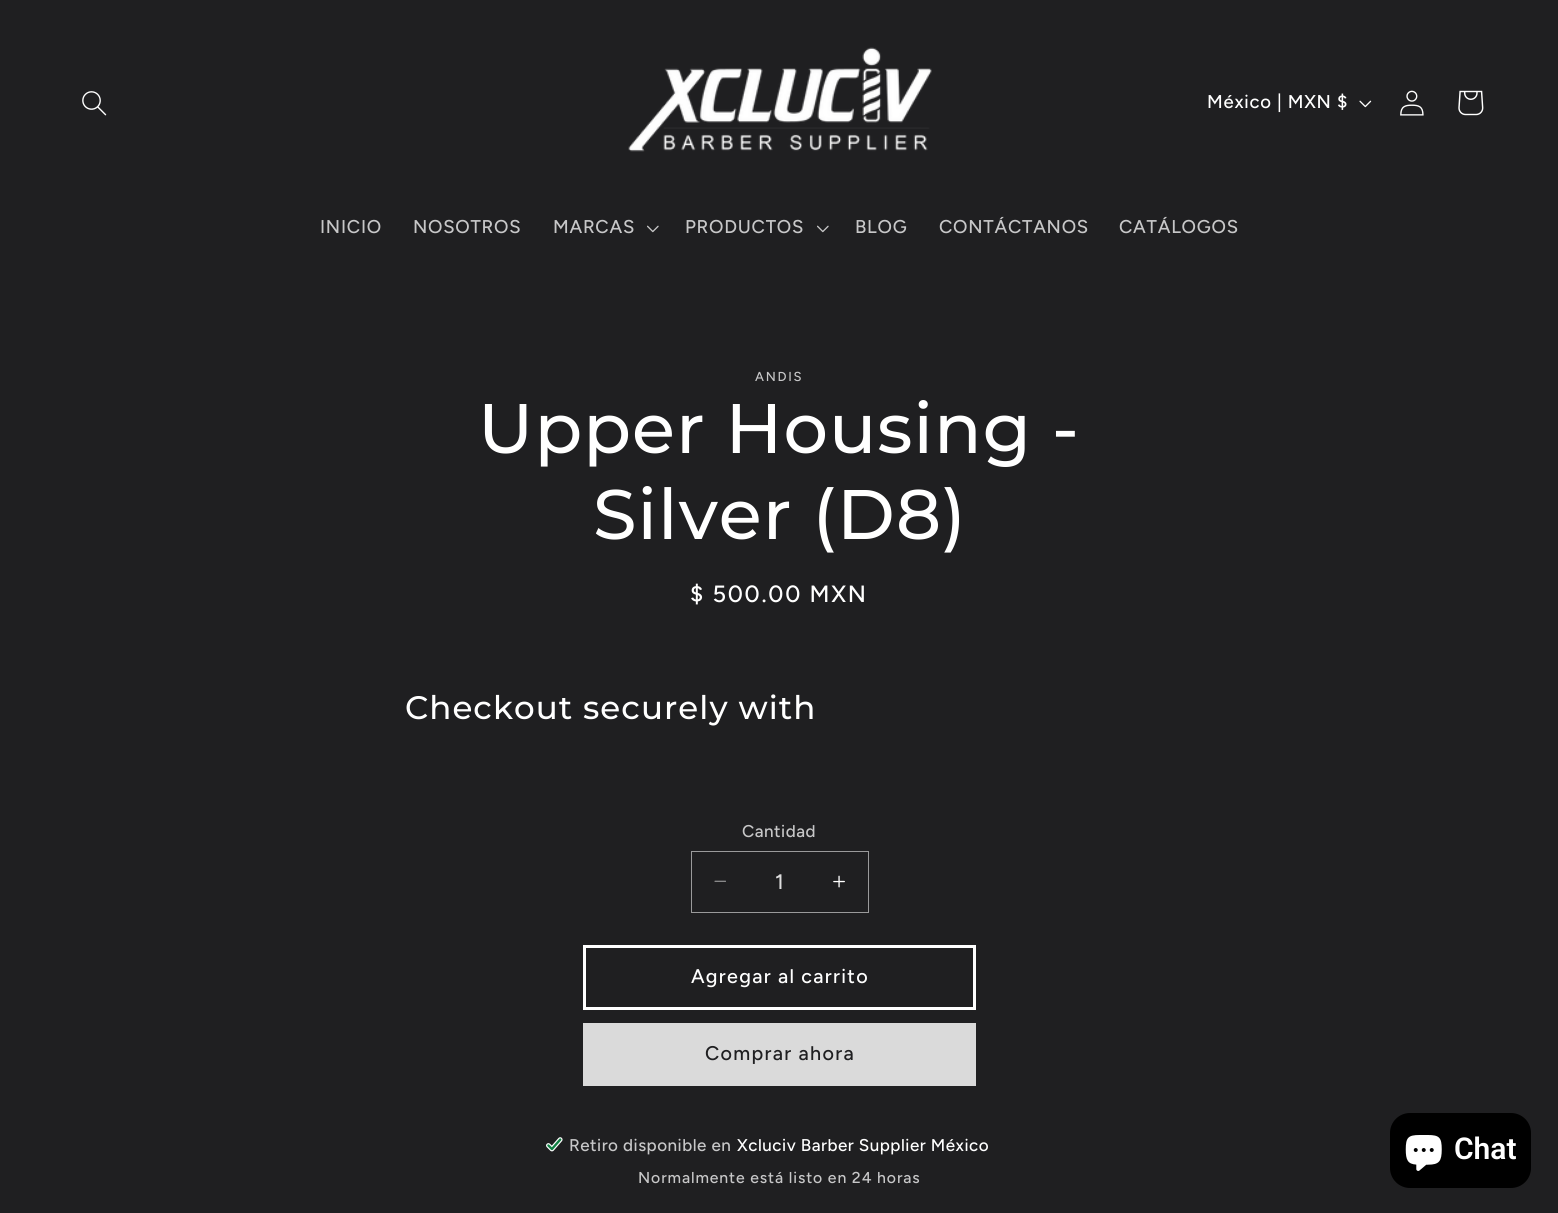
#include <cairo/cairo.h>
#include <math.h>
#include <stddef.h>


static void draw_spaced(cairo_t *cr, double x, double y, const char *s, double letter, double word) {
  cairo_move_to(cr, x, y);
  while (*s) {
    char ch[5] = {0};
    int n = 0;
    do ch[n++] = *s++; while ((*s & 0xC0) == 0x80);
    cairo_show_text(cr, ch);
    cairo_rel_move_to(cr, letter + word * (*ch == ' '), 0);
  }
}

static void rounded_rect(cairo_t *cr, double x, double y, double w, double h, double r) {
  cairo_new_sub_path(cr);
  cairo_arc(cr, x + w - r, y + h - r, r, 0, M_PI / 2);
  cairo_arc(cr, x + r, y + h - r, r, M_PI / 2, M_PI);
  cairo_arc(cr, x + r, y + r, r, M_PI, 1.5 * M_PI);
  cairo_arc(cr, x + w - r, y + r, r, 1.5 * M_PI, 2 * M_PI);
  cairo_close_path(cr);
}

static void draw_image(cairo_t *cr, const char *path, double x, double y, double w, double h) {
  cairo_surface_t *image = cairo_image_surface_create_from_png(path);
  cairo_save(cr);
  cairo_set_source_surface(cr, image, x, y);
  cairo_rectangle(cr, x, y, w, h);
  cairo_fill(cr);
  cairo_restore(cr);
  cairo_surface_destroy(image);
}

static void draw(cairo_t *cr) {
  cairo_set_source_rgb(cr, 31 / 255.0, 31 / 255.0, 33 / 255.0);
  cairo_paint(cr);
  draw_image(cr, "images/1.png", 82, 91, 25, 25);
  draw_image(cr, "images/2.png", 628, 47, 304, 105);
  draw_image(cr, "images/3.png", 1359, 100, 13, 8);
  draw_image(cr, "images/4.png", 1400, 90, 24, 26);
  draw_image(cr, "images/5.png", 1458, 90, 26, 26);
  draw_image(cr, "images/6.png", 647, 225, 12, 8);
  draw_image(cr, "images/6.png", 817, 225, 12, 8);
  draw_image(cr, "images/7.png", 714, 880, 12, 2);
  draw_image(cr, "images/8.png", 833, 875, 12, 13);
  cairo_rectangle(cr, 691.5, 851.5, 177, 61);
  cairo_set_source_rgb(cr, 154 / 255.0, 154 / 255.0, 155 / 255.0);
  cairo_set_line_width(cr, 1);
  cairo_stroke(cr);
  cairo_rectangle(cr, 584.5, 946.5, 390, 62);
  cairo_set_source_rgb(cr, 1, 1, 1);
  cairo_set_line_width(cr, 3);
  cairo_stroke(cr);
  cairo_set_source_rgb(cr, 218 / 255.0, 218 / 255.0, 218 / 255.0);
  cairo_rectangle(cr, 583, 1023, 393, 63);
  cairo_fill(cr);
  draw_image(cr, "images/9.png", 546, 1137, 17, 15);
  cairo_set_source_rgb(cr, 0, 0, 0);
  rounded_rect(cr, 1390, 1113, 141, 75, 20);
  cairo_fill(cr);
  draw_image(cr, "images/10.png", 1405, 1135, 37, 36);
  cairo_select_font_face(cr, "Figtree Medium", CAIRO_FONT_SLANT_NORMAL, CAIRO_FONT_WEIGHT_NORMAL);
  cairo_set_font_size(cr, 18.5);
  cairo_set_source_rgb(cr, 1, 1, 1);
  draw_spaced(cr, 1207, 108, "México | MXN $", 0.75, 0);
  cairo_set_source_rgb(cr, 199 / 255.0, 199 / 255.0, 200 / 255.0);
  draw_spaced(cr, 320, 233, "INICIO", 0.75, 0);
  draw_spaced(cr, 413, 233, "NOSOTROS", 0.75, 0);
  draw_spaced(cr, 553, 233, "MARCAS", 0.75, 0);
  draw_spaced(cr, 685, 233, "PRODUCTOS", 0.75, 0);
  draw_spaced(cr, 855, 233, "BLOG", 0.75, 0);
  draw_spaced(cr, 939, 233, "CONTÁCTANOS", 0.75, 0);
  draw_spaced(cr, 1119, 233, "CATÁLOGOS", 0.75, 0);
  cairo_set_font_size(cr, 13);
  draw_spaced(cr, 755, 381, "ANDIS", 1.75, 0);
  cairo_select_font_face(cr, "Montserrat Medium", CAIRO_FONT_SLANT_NORMAL, CAIRO_FONT_WEIGHT_NORMAL);
  cairo_set_font_size(cr, 70);
  cairo_set_source_rgb(cr, 1, 1, 1);
  draw_spaced(cr, 478, 453, "Upper Housing -", 1.05, 0);
  draw_spaced(cr, 593, 539, "Silver (D8)", 1.05, 0);
  cairo_select_font_face(cr, "Figtree Medium", CAIRO_FONT_SLANT_NORMAL, CAIRO_FONT_WEIGHT_NORMAL);
  cairo_set_font_size(cr, 23.5);
  draw_spaced(cr, 690, 602, "$ 500.00 MXN", 1.75, 0);
  cairo_select_font_face(cr, "Montserrat Medium", CAIRO_FONT_SLANT_NORMAL, CAIRO_FONT_WEIGHT_NORMAL);
  cairo_set_font_size(cr, 32.5);
  draw_spaced(cr, 405, 719, "Checkout securely with", 1.05, 0);
  cairo_select_font_face(cr, "Figtree Medium", CAIRO_FONT_SLANT_NORMAL, CAIRO_FONT_WEIGHT_NORMAL);
  cairo_set_font_size(cr, 17);
  cairo_set_source_rgb(cr, 199 / 255.0, 199 / 255.0, 200 / 255.0);
  draw_spaced(cr, 742, 837, "Cantidad", 0.5, 0);
  cairo_set_font_size(cr, 21);
  cairo_set_source_rgb(cr, 221 / 255.0, 221 / 255.0, 222 / 255.0);
  cairo_move_to(cr, 775, 889);
  cairo_show_text(cr, "1");
  cairo_set_font_size(cr, 19.75);
  cairo_set_source_rgb(cr, 1, 1, 1);
  draw_spaced(cr, 691, 983, "Agregar al carrito", 1.3, 0);
  cairo_set_source_rgb(cr, 31 / 255.0, 31 / 255.0, 33 / 255.0);
  draw_spaced(cr, 705, 1060, "Comprar ahora", 1.3, 0);
  cairo_set_font_size(cr, 17);
  cairo_set_source_rgb(cr, 199 / 255.0, 199 / 255.0, 200 / 255.0);
  draw_spaced(cr, 569, 1151, "Retiro disponible en", 0.5, 0);
  cairo_set_source_rgb(cr, 1, 1, 1);
  draw_spaced(cr, 737, 1151, "Xcluciv Barber Supplier México", 0.5, 0);
  cairo_set_font_size(cr, 15.75);
  cairo_set_source_rgb(cr, 199 / 255.0, 199 / 255.0, 200 / 255.0);
  draw_spaced(cr, 638, 1183, "Normalmente está listo en 24 horas", 0.9, 0);
  cairo_select_font_face(cr, "Roboto SemiBold", CAIRO_FONT_SLANT_NORMAL, CAIRO_FONT_WEIGHT_NORMAL);
  cairo_set_font_size(cr, 30);
  cairo_set_source_rgb(cr, 1, 1, 1);
  cairo_move_to(cr, 1454, 1159);
  cairo_show_text(cr, "Chat");
}

int main(void) {
  cairo_surface_t *surface = cairo_image_surface_create(CAIRO_FORMAT_RGB24, 1558, 1213);
  cairo_t *cr = cairo_create(surface);
  cairo_font_options_t *options = cairo_font_options_create();
  cairo_font_options_set_hint_metrics(options, CAIRO_HINT_METRICS_OFF);
  cairo_font_options_set_hint_style(options, CAIRO_HINT_STYLE_NONE);
  cairo_set_font_options(cr, options);
  cairo_set_miter_limit(cr, 4);
  draw(cr);
  cairo_surface_write_to_png(surface, "out.png");
  cairo_font_options_destroy(options);
  cairo_destroy(cr);
  cairo_surface_destroy(surface);
  return 0;
}
